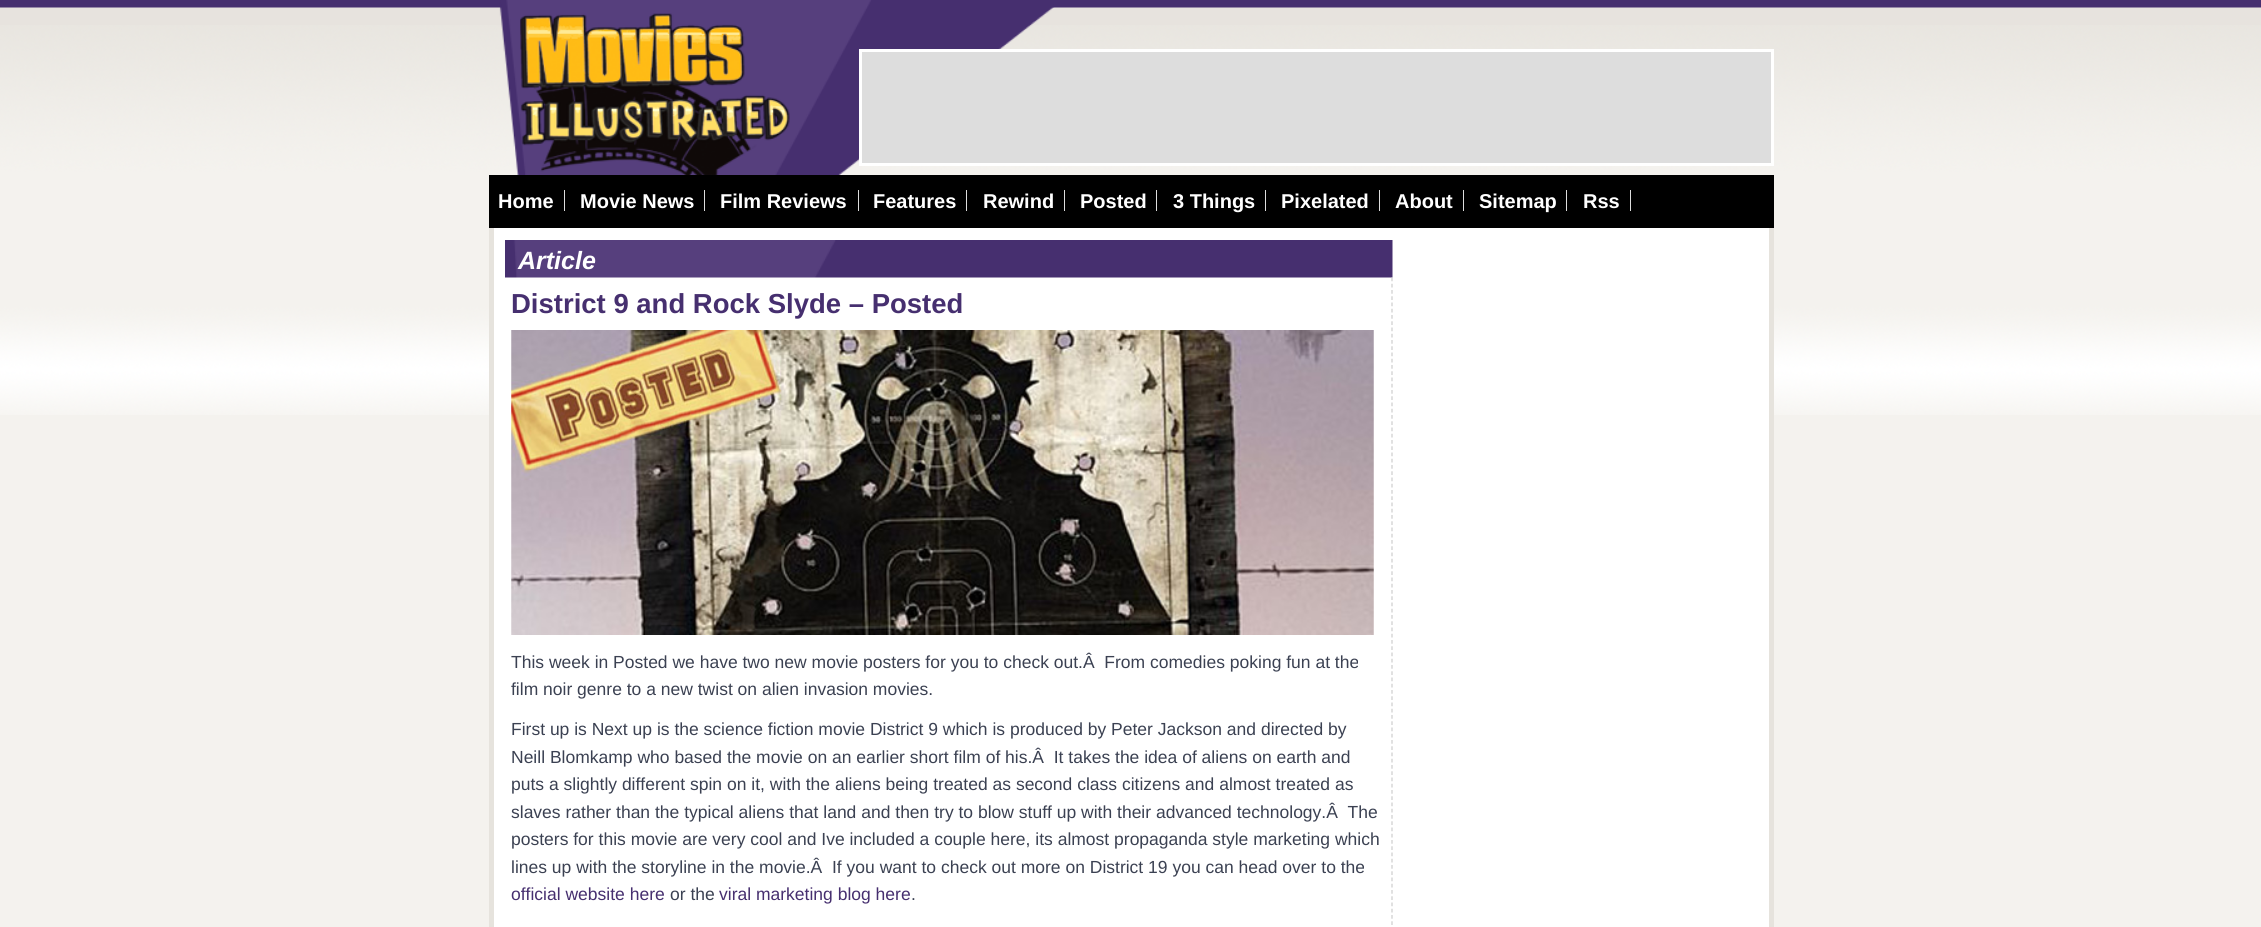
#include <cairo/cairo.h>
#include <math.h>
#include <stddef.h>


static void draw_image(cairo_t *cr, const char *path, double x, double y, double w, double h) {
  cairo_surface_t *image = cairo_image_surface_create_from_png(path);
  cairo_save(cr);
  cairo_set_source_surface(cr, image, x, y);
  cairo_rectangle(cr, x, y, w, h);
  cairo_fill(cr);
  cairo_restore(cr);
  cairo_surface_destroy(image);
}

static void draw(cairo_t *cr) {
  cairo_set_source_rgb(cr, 244 / 255.0, 242 / 255.0, 238 / 255.0);
  cairo_paint(cr);
  draw_image(cr, "images/1.png", 0, 0, 2261, 415);
  draw_image(cr, "images/2.png", 499, 0, 556, 175);
  cairo_set_source_rgb(cr, 221 / 255.0, 221 / 255.0, 221 / 255.0);
  cairo_rectangle(cr, 860.5, 50.5, 912, 114);
  cairo_fill_preserve(cr);
  cairo_set_source_rgb(cr, 1, 1, 1);
  cairo_set_line_width(cr, 3);
  cairo_stroke(cr);
  cairo_set_source_rgb(cr, 0, 0, 0);
  cairo_rectangle(cr, 489, 175, 1285, 53);
  cairo_fill(cr);
  cairo_set_source_rgb(cr, 221 / 255.0, 221 / 255.0, 221 / 255.0);
  cairo_rectangle(cr, 564, 190, 1, 21);
  cairo_fill(cr);
  cairo_rectangle(cr, 704, 190, 1, 21);
  cairo_fill(cr);
  cairo_rectangle(cr, 858, 190, 1, 21);
  cairo_fill(cr);
  cairo_rectangle(cr, 966, 190, 1, 21);
  cairo_fill(cr);
  cairo_rectangle(cr, 1064, 190, 1, 21);
  cairo_fill(cr);
  cairo_rectangle(cr, 1156, 190, 1, 21);
  cairo_fill(cr);
  cairo_rectangle(cr, 1265, 190, 1, 21);
  cairo_fill(cr);
  cairo_rectangle(cr, 1379, 190, 1, 21);
  cairo_fill(cr);
  cairo_rectangle(cr, 1463, 190, 1, 21);
  cairo_fill(cr);
  cairo_rectangle(cr, 1566, 190, 1, 21);
  cairo_fill(cr);
  cairo_rectangle(cr, 1630, 190, 1, 21);
  cairo_fill(cr);
  cairo_set_source_rgb(cr, 1, 1, 1);
  cairo_rectangle(cr, 494, 228, 1275, 699);
  cairo_fill(cr);
  cairo_set_source_rgb(cr, 230 / 255.0, 227 / 255.0, 221 / 255.0);
  cairo_rectangle(cr, 1769, 228, 5, 699);
  cairo_fill(cr);
  cairo_rectangle(cr, 489, 228, 5, 699);
  cairo_fill(cr);
  draw_image(cr, "images/3.png", 505, 240, 888, 38);
  cairo_new_path(cr);
  cairo_move_to(cr, 1392, 277.5);
  cairo_line_to(cr, 1392, 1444);
  cairo_set_source_rgb(cr, 206 / 255.0, 206 / 255.0, 206 / 255.0);
  cairo_set_line_width(cr, 1.2);
  cairo_set_dash(cr, (double[]){3.75, 2.5}, 2, 0);
  cairo_stroke(cr);
  draw_image(cr, "images/4.png", 511, 330, 863, 305);
  cairo_select_font_face(cr, "Liberation Sans", CAIRO_FONT_SLANT_NORMAL, CAIRO_FONT_WEIGHT_BOLD);
  cairo_set_font_size(cr, 20);
  cairo_set_source_rgb(cr, 1, 1, 1);
  cairo_move_to(cr, 498, 208);
  cairo_show_text(cr, "Home");
  cairo_move_to(cr, 580, 208);
  cairo_show_text(cr, "Movie News");
  cairo_move_to(cr, 720, 208);
  cairo_show_text(cr, "Film Reviews");
  cairo_move_to(cr, 873, 208);
  cairo_show_text(cr, "Features");
  cairo_move_to(cr, 983, 208);
  cairo_show_text(cr, "Rewind");
  cairo_move_to(cr, 1080, 208);
  cairo_show_text(cr, "Posted");
  cairo_move_to(cr, 1173, 208);
  cairo_show_text(cr, "3 Things");
  cairo_move_to(cr, 1281, 208);
  cairo_show_text(cr, "Pixelated");
  cairo_move_to(cr, 1395, 208);
  cairo_show_text(cr, "About");
  cairo_move_to(cr, 1479, 208);
  cairo_show_text(cr, "Sitemap");
  cairo_move_to(cr, 1583, 208);
  cairo_show_text(cr, "Rss");
  cairo_select_font_face(cr, "Liberation Sans", CAIRO_FONT_SLANT_ITALIC, CAIRO_FONT_WEIGHT_BOLD);
  cairo_set_font_size(cr, 25);
  cairo_move_to(cr, 518, 269);
  cairo_show_text(cr, "Article");
  cairo_select_font_face(cr, "Liberation Sans", CAIRO_FONT_SLANT_NORMAL, CAIRO_FONT_WEIGHT_BOLD);
  cairo_set_font_size(cr, 27.5);
  cairo_set_source_rgb(cr, 70 / 255.0, 47 / 255.0, 111 / 255.0);
  cairo_move_to(cr, 511, 313);
  cairo_show_text(cr, "District 9 and Rock Slyde – Posted");
  cairo_select_font_face(cr, "Liberation Sans", CAIRO_FONT_SLANT_NORMAL, CAIRO_FONT_WEIGHT_NORMAL);
  cairo_set_font_size(cr, 17.5);
  cairo_set_source_rgb(cr, 59 / 255.0, 65 / 255.0, 82 / 255.0);
  cairo_move_to(cr, 511, 668);
  cairo_show_text(cr, "This week in Posted we have two new movie posters for you to check out.Â  From comedies poking fun at the");
  cairo_move_to(cr, 511, 695);
  cairo_show_text(cr, "film noir genre to a new twist on alien invasion movies.");
  cairo_move_to(cr, 511, 735);
  cairo_show_text(cr, "First up is Next up is the science fiction movie District 9 which is produced by Peter Jackson and directed by");
  cairo_move_to(cr, 511, 763);
  cairo_show_text(cr, "Neill Blomkamp who based the movie on an earlier short film of his.Â  It takes the idea of aliens on earth and");
  cairo_move_to(cr, 511, 790);
  cairo_show_text(cr, "puts a slightly different spin on it, with the aliens being treated as second class citizens and almost treated as");
  cairo_move_to(cr, 511, 818);
  cairo_show_text(cr, "slaves rather than the typical aliens that land and then try to blow stuff up with their advanced technology.Â  The");
  cairo_move_to(cr, 511, 845);
  cairo_show_text(cr, "posters for this movie are very cool and Ive included a couple here, its almost propaganda style marketing which");
  cairo_move_to(cr, 511, 873);
  cairo_show_text(cr, "lines up with the storyline in the movie.Â  If you want to check out more on District 19 you can head over to the");
  cairo_set_source_rgb(cr, 70 / 255.0, 47 / 255.0, 111 / 255.0);
  cairo_move_to(cr, 511, 900);
  cairo_show_text(cr, "official website here");
  cairo_set_source_rgb(cr, 59 / 255.0, 65 / 255.0, 82 / 255.0);
  cairo_move_to(cr, 670, 900);
  cairo_show_text(cr, "or the");
  cairo_set_source_rgb(cr, 70 / 255.0, 47 / 255.0, 111 / 255.0);
  cairo_move_to(cr, 719, 900);
  cairo_show_text(cr, "viral marketing blog here");
  cairo_set_source_rgb(cr, 59 / 255.0, 65 / 255.0, 82 / 255.0);
  cairo_move_to(cr, 911, 900);
  cairo_show_text(cr, ".");
}

int main(void) {
  cairo_surface_t *surface = cairo_image_surface_create(CAIRO_FORMAT_RGB24, 2261, 927);
  cairo_t *cr = cairo_create(surface);
  cairo_font_options_t *options = cairo_font_options_create();
  cairo_font_options_set_hint_metrics(options, CAIRO_HINT_METRICS_OFF);
  cairo_font_options_set_hint_style(options, CAIRO_HINT_STYLE_NONE);
  cairo_set_font_options(cr, options);
  cairo_set_miter_limit(cr, 4);
  draw(cr);
  cairo_surface_write_to_png(surface, "out.png");
  cairo_font_options_destroy(options);
  cairo_destroy(cr);
  cairo_surface_destroy(surface);
  return 0;
}
